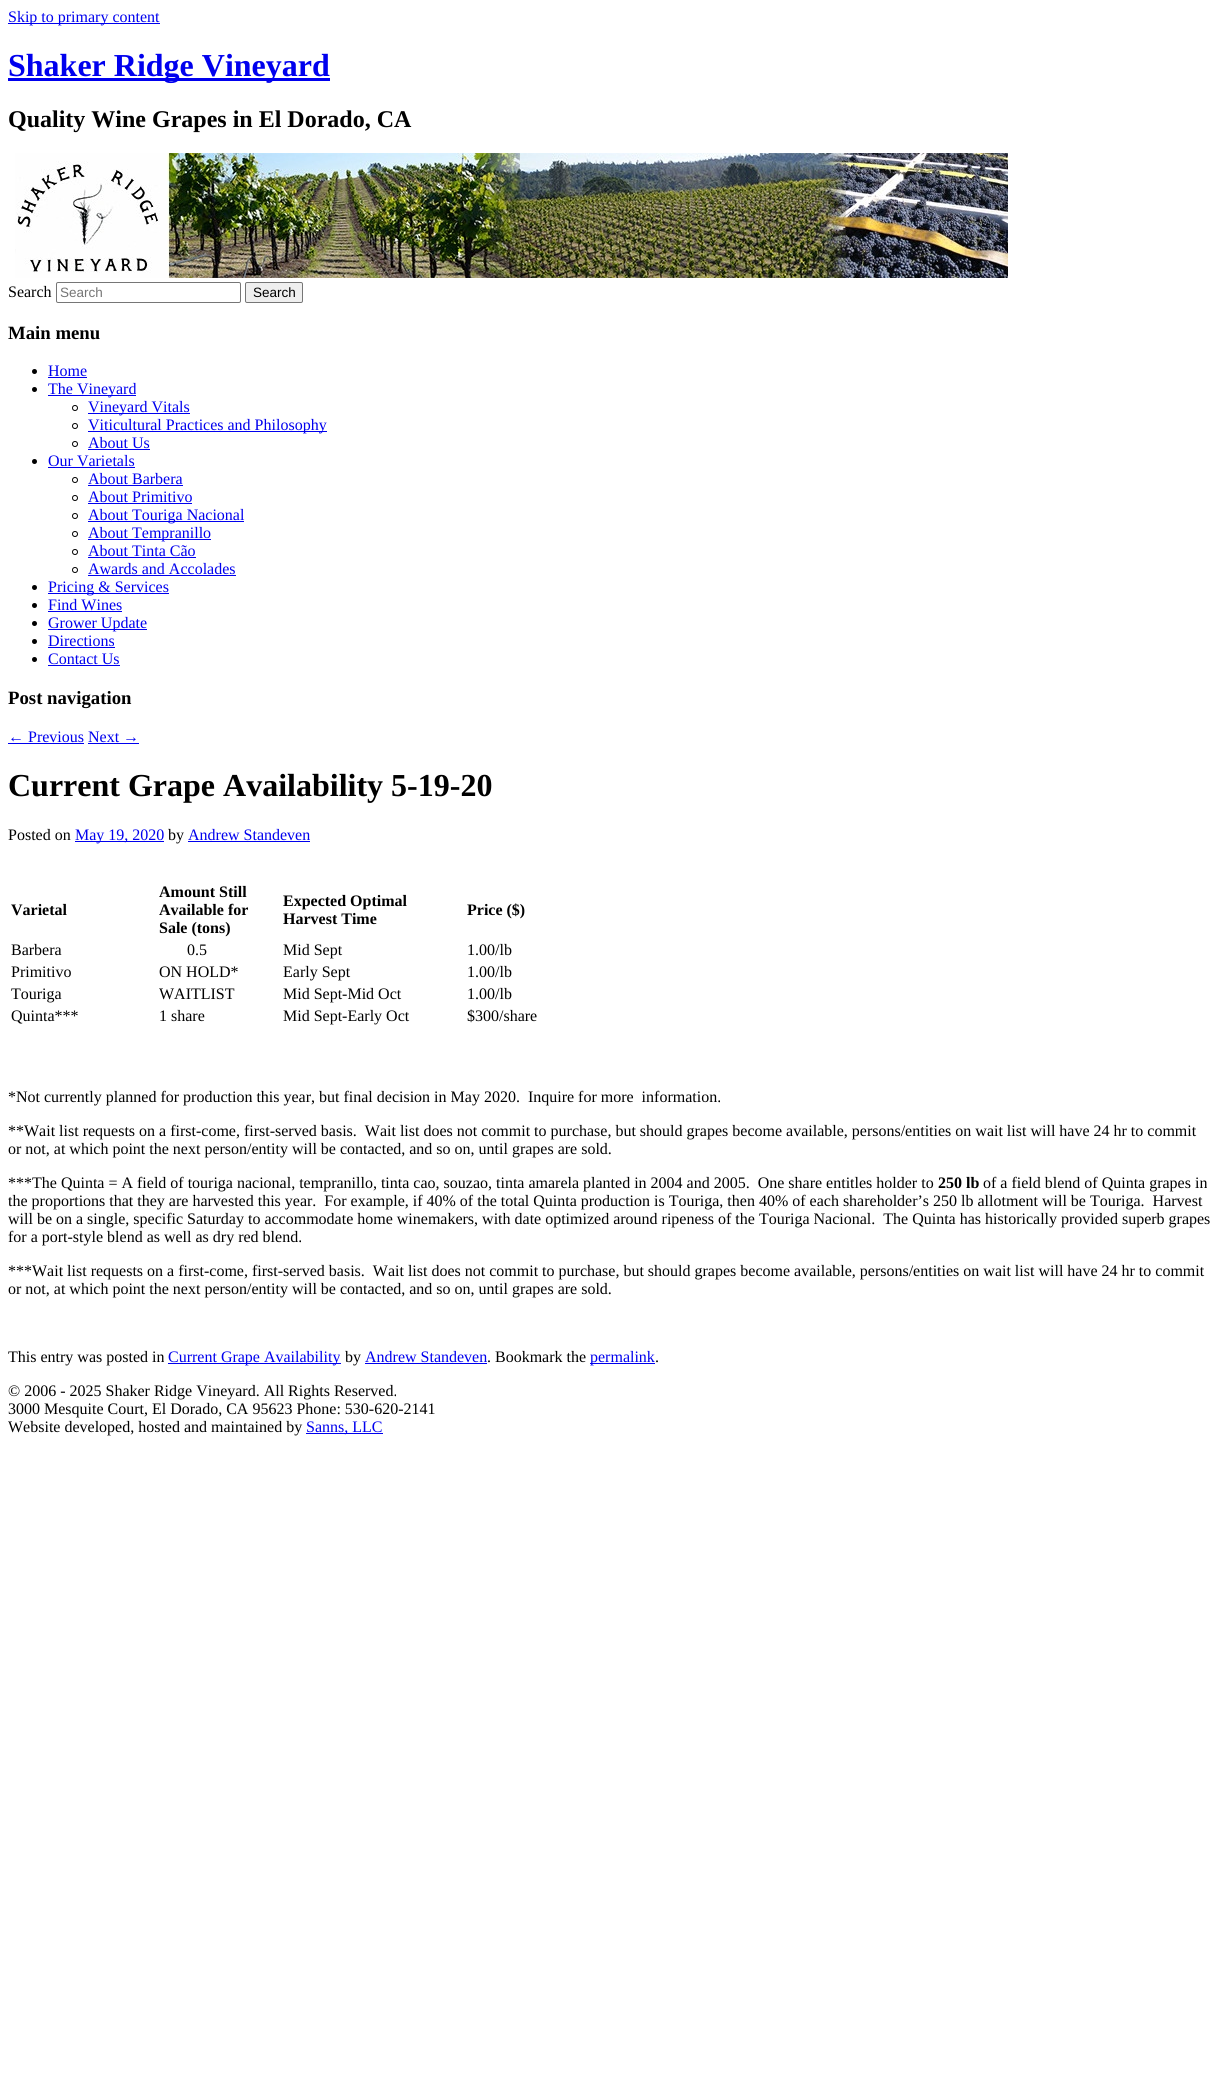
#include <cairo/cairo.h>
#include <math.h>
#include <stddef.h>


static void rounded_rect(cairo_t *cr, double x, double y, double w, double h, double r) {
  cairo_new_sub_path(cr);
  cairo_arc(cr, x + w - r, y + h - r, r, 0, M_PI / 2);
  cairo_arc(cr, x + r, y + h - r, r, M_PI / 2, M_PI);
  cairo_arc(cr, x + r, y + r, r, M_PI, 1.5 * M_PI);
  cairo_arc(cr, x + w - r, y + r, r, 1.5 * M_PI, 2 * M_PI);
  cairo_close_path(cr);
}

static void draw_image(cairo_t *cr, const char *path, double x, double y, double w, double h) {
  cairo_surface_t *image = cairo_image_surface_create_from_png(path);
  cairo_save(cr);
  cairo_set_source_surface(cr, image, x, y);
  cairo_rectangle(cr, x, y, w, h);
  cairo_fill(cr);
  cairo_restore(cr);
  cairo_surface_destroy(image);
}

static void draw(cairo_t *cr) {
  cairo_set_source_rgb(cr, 1, 1, 1);
  cairo_paint(cr);
  cairo_set_source_rgb(cr, 0, 0, 238 / 255.0);
  cairo_rectangle(cr, 8, 23, 152, 1);
  cairo_fill(cr);
  cairo_rectangle(cr, 8, 78, 322, 3);
  cairo_fill(cr);
  draw_image(cr, "images/1.png", 15, 153, 993, 125);
  rounded_rect(cr, 56.5, 282.5, 184, 20, 1.5);
  cairo_set_source_rgb(cr, 118 / 255.0, 118 / 255.0, 118 / 255.0);
  cairo_set_line_width(cr, 1);
  cairo_stroke(cr);
  cairo_set_source_rgb(cr, 239 / 255.0, 239 / 255.0, 239 / 255.0);
  rounded_rect(cr, 245.5, 282.5, 57, 20, 1.5);
  cairo_fill_preserve(cr);
  cairo_set_source_rgb(cr, 118 / 255.0, 118 / 255.0, 118 / 255.0);
  cairo_stroke(cr);
  cairo_set_source_rgb(cr, 0, 0, 0);
  cairo_arc(cr, 34.5, 371.5, 2.5, 0, 2 * M_PI);
  cairo_fill(cr);
  cairo_set_source_rgb(cr, 0, 0, 238 / 255.0);
  cairo_rectangle(cr, 48, 377, 39, 1);
  cairo_fill(cr);
  cairo_set_source_rgb(cr, 0, 0, 0);
  cairo_arc(cr, 34.5, 389.5, 2.5, 0, 2 * M_PI);
  cairo_fill(cr);
  cairo_set_source_rgb(cr, 0, 0, 238 / 255.0);
  cairo_rectangle(cr, 48, 395, 88, 1);
  cairo_fill(cr);
  cairo_arc(cr, 75, 408, 2.5, 0, 2 * M_PI);
  cairo_set_source_rgb(cr, 0, 0, 0);
  cairo_stroke(cr);
  cairo_set_source_rgb(cr, 0, 0, 238 / 255.0);
  cairo_rectangle(cr, 88, 413, 102, 1);
  cairo_fill(cr);
  cairo_arc(cr, 75, 426, 2.5, 0, 2 * M_PI);
  cairo_set_source_rgb(cr, 0, 0, 0);
  cairo_stroke(cr);
  cairo_set_source_rgb(cr, 0, 0, 238 / 255.0);
  cairo_rectangle(cr, 88, 431, 239, 1);
  cairo_fill(cr);
  cairo_arc(cr, 75, 444, 2.5, 0, 2 * M_PI);
  cairo_set_source_rgb(cr, 0, 0, 0);
  cairo_stroke(cr);
  cairo_set_source_rgb(cr, 0, 0, 238 / 255.0);
  cairo_rectangle(cr, 88, 449, 62, 1);
  cairo_fill(cr);
  cairo_set_source_rgb(cr, 0, 0, 0);
  cairo_arc(cr, 34.5, 461.5, 2.5, 0, 2 * M_PI);
  cairo_fill(cr);
  cairo_set_source_rgb(cr, 0, 0, 238 / 255.0);
  cairo_rectangle(cr, 48, 467, 87, 1);
  cairo_fill(cr);
  cairo_arc(cr, 75, 480, 2.5, 0, 2 * M_PI);
  cairo_set_source_rgb(cr, 0, 0, 0);
  cairo_stroke(cr);
  cairo_set_source_rgb(cr, 0, 0, 238 / 255.0);
  cairo_rectangle(cr, 88, 485, 95, 1);
  cairo_fill(cr);
  cairo_arc(cr, 75, 498, 2.5, 0, 2 * M_PI);
  cairo_set_source_rgb(cr, 0, 0, 0);
  cairo_stroke(cr);
  cairo_set_source_rgb(cr, 0, 0, 238 / 255.0);
  cairo_rectangle(cr, 88, 503, 104, 1);
  cairo_fill(cr);
  cairo_arc(cr, 75, 516, 2.5, 0, 2 * M_PI);
  cairo_set_source_rgb(cr, 0, 0, 0);
  cairo_stroke(cr);
  cairo_set_source_rgb(cr, 0, 0, 238 / 255.0);
  cairo_rectangle(cr, 88, 521, 156, 1);
  cairo_fill(cr);
  cairo_arc(cr, 75, 534, 2.5, 0, 2 * M_PI);
  cairo_set_source_rgb(cr, 0, 0, 0);
  cairo_stroke(cr);
  cairo_set_source_rgb(cr, 0, 0, 238 / 255.0);
  cairo_rectangle(cr, 88, 539, 123, 1);
  cairo_fill(cr);
  cairo_arc(cr, 75, 552, 2.5, 0, 2 * M_PI);
  cairo_set_source_rgb(cr, 0, 0, 0);
  cairo_stroke(cr);
  cairo_set_source_rgb(cr, 0, 0, 238 / 255.0);
  cairo_rectangle(cr, 88, 557, 108, 1);
  cairo_fill(cr);
  cairo_arc(cr, 75, 570, 2.5, 0, 2 * M_PI);
  cairo_set_source_rgb(cr, 0, 0, 0);
  cairo_stroke(cr);
  cairo_set_source_rgb(cr, 0, 0, 238 / 255.0);
  cairo_rectangle(cr, 88, 575, 148, 1);
  cairo_fill(cr);
  cairo_set_source_rgb(cr, 0, 0, 0);
  cairo_arc(cr, 34.5, 587.5, 2.5, 0, 2 * M_PI);
  cairo_fill(cr);
  cairo_set_source_rgb(cr, 0, 0, 238 / 255.0);
  cairo_rectangle(cr, 48, 593, 121, 1);
  cairo_fill(cr);
  cairo_set_source_rgb(cr, 0, 0, 0);
  cairo_arc(cr, 34.5, 605.5, 2.5, 0, 2 * M_PI);
  cairo_fill(cr);
  cairo_set_source_rgb(cr, 0, 0, 238 / 255.0);
  cairo_rectangle(cr, 48, 611, 74, 1);
  cairo_fill(cr);
  cairo_set_source_rgb(cr, 0, 0, 0);
  cairo_arc(cr, 34.5, 623.5, 2.5, 0, 2 * M_PI);
  cairo_fill(cr);
  cairo_set_source_rgb(cr, 0, 0, 238 / 255.0);
  cairo_rectangle(cr, 48, 629, 99, 1);
  cairo_fill(cr);
  cairo_set_source_rgb(cr, 0, 0, 0);
  cairo_arc(cr, 34.5, 641.5, 2.5, 0, 2 * M_PI);
  cairo_fill(cr);
  cairo_set_source_rgb(cr, 0, 0, 238 / 255.0);
  cairo_rectangle(cr, 48, 647, 67, 1);
  cairo_fill(cr);
  cairo_set_source_rgb(cr, 0, 0, 0);
  cairo_arc(cr, 34.5, 659.5, 2.5, 0, 2 * M_PI);
  cairo_fill(cr);
  cairo_set_source_rgb(cr, 0, 0, 238 / 255.0);
  cairo_rectangle(cr, 48, 665, 72, 1);
  cairo_fill(cr);
  cairo_rectangle(cr, 8, 743, 76, 1);
  cairo_fill(cr);
  cairo_rectangle(cr, 88, 743, 51, 1);
  cairo_fill(cr);
  cairo_rectangle(cr, 75, 841, 89, 1);
  cairo_fill(cr);
  cairo_rectangle(cr, 188, 841, 122, 1);
  cairo_fill(cr);
  cairo_rectangle(cr, 168, 1363, 173, 1);
  cairo_fill(cr);
  cairo_rectangle(cr, 365, 1363, 122, 1);
  cairo_fill(cr);
  cairo_rectangle(cr, 590, 1363, 65, 1);
  cairo_fill(cr);
  cairo_rectangle(cr, 306, 1433, 77, 1);
  cairo_fill(cr);
  cairo_select_font_face(cr, "Liberation Serif", CAIRO_FONT_SLANT_NORMAL, CAIRO_FONT_WEIGHT_NORMAL);
  cairo_set_font_size(cr, 16);
  cairo_move_to(cr, 8, 22);
  cairo_show_text(cr, "Skip to primary content");
  cairo_select_font_face(cr, "Liberation Serif", CAIRO_FONT_SLANT_NORMAL, CAIRO_FONT_WEIGHT_BOLD);
  cairo_set_font_size(cr, 32);
  cairo_move_to(cr, 8, 76);
  cairo_show_text(cr, "Shaker Ridge Vineyard");
  cairo_set_font_size(cr, 24);
  cairo_set_source_rgb(cr, 0, 0, 0);
  cairo_move_to(cr, 8, 127);
  cairo_show_text(cr, "Quality Wine Grapes in El Dorado, CA");
  cairo_select_font_face(cr, "Liberation Serif", CAIRO_FONT_SLANT_NORMAL, CAIRO_FONT_WEIGHT_NORMAL);
  cairo_set_font_size(cr, 16);
  cairo_move_to(cr, 8, 297);
  cairo_show_text(cr, "Search");
  cairo_select_font_face(cr, "Liberation Sans", CAIRO_FONT_SLANT_NORMAL, CAIRO_FONT_WEIGHT_NORMAL);
  cairo_set_font_size(cr, 13.5);
  cairo_set_source_rgb(cr, 117 / 255.0, 117 / 255.0, 117 / 255.0);
  cairo_move_to(cr, 60, 297);
  cairo_show_text(cr, "Search");
  cairo_set_source_rgb(cr, 0, 0, 0);
  cairo_move_to(cr, 253, 297);
  cairo_show_text(cr, "Search");
  cairo_select_font_face(cr, "Liberation Serif", CAIRO_FONT_SLANT_NORMAL, CAIRO_FONT_WEIGHT_BOLD);
  cairo_set_font_size(cr, 18.75);
  cairo_move_to(cr, 8, 339);
  cairo_show_text(cr, "Main menu");
  cairo_select_font_face(cr, "Liberation Serif", CAIRO_FONT_SLANT_NORMAL, CAIRO_FONT_WEIGHT_NORMAL);
  cairo_set_font_size(cr, 16);
  cairo_set_source_rgb(cr, 0, 0, 238 / 255.0);
  cairo_move_to(cr, 48, 376);
  cairo_show_text(cr, "Home");
  cairo_move_to(cr, 48, 394);
  cairo_show_text(cr, "The Vineyard");
  cairo_move_to(cr, 88, 412);
  cairo_show_text(cr, "Vineyard Vitals");
  cairo_move_to(cr, 88, 430);
  cairo_show_text(cr, "Viticultural Practices and Philosophy");
  cairo_move_to(cr, 88, 448);
  cairo_show_text(cr, "About Us");
  cairo_move_to(cr, 48, 466);
  cairo_show_text(cr, "Our Varietals");
  cairo_move_to(cr, 88, 484);
  cairo_show_text(cr, "About Barbera");
  cairo_move_to(cr, 88, 502);
  cairo_show_text(cr, "About Primitivo");
  cairo_move_to(cr, 88, 520);
  cairo_show_text(cr, "About Touriga Nacional");
  cairo_move_to(cr, 88, 538);
  cairo_show_text(cr, "About Tempranillo");
  cairo_move_to(cr, 88, 556);
  cairo_show_text(cr, "About Tinta Cão");
  cairo_move_to(cr, 88, 574);
  cairo_show_text(cr, "Awards and Accolades");
  cairo_move_to(cr, 48, 592);
  cairo_show_text(cr, "Pricing & Services");
  cairo_move_to(cr, 48, 610);
  cairo_show_text(cr, "Find Wines");
  cairo_move_to(cr, 48, 628);
  cairo_show_text(cr, "Grower Update");
  cairo_move_to(cr, 48, 646);
  cairo_show_text(cr, "Directions");
  cairo_move_to(cr, 48, 664);
  cairo_show_text(cr, "Contact Us");
  cairo_select_font_face(cr, "Liberation Serif", CAIRO_FONT_SLANT_NORMAL, CAIRO_FONT_WEIGHT_BOLD);
  cairo_set_font_size(cr, 18.75);
  cairo_set_source_rgb(cr, 0, 0, 0);
  cairo_move_to(cr, 8, 704);
  cairo_show_text(cr, "Post navigation");
  cairo_select_font_face(cr, "Liberation Serif", CAIRO_FONT_SLANT_NORMAL, CAIRO_FONT_WEIGHT_NORMAL);
  cairo_set_font_size(cr, 16);
  cairo_set_source_rgb(cr, 0, 0, 238 / 255.0);
  cairo_move_to(cr, 8, 742);
  cairo_show_text(cr, "← Previous Next →");
  cairo_select_font_face(cr, "Liberation Serif", CAIRO_FONT_SLANT_NORMAL, CAIRO_FONT_WEIGHT_BOLD);
  cairo_set_font_size(cr, 32);
  cairo_set_source_rgb(cr, 0, 0, 0);
  cairo_move_to(cr, 8, 796);
  cairo_show_text(cr, "Current Grape Availability 5-19-20");
  cairo_select_font_face(cr, "Liberation Serif", CAIRO_FONT_SLANT_NORMAL, CAIRO_FONT_WEIGHT_NORMAL);
  cairo_set_font_size(cr, 16);
  cairo_move_to(cr, 8, 840);
  cairo_show_text(cr, "Posted on");
  cairo_set_source_rgb(cr, 0, 0, 238 / 255.0);
  cairo_move_to(cr, 75, 840);
  cairo_show_text(cr, "May 19, 2020");
  cairo_set_source_rgb(cr, 0, 0, 0);
  cairo_move_to(cr, 168, 840);
  cairo_show_text(cr, "by");
  cairo_set_source_rgb(cr, 0, 0, 238 / 255.0);
  cairo_move_to(cr, 188, 840);
  cairo_show_text(cr, "Andrew Standeven");
  cairo_select_font_face(cr, "Liberation Serif", CAIRO_FONT_SLANT_NORMAL, CAIRO_FONT_WEIGHT_BOLD);
  cairo_set_source_rgb(cr, 0, 0, 0);
  cairo_move_to(cr, 11, 915);
  cairo_show_text(cr, "Varietal");
  cairo_move_to(cr, 159, 897);
  cairo_show_text(cr, "Amount Still");
  cairo_move_to(cr, 159, 915);
  cairo_show_text(cr, "Available for");
  cairo_move_to(cr, 159, 933);
  cairo_show_text(cr, "Sale (tons)");
  cairo_move_to(cr, 283, 906);
  cairo_show_text(cr, "Expected Optimal");
  cairo_move_to(cr, 283, 924);
  cairo_show_text(cr, "Harvest Time");
  cairo_move_to(cr, 467, 915);
  cairo_show_text(cr, "Price ($)");
  cairo_select_font_face(cr, "Liberation Serif", CAIRO_FONT_SLANT_NORMAL, CAIRO_FONT_WEIGHT_NORMAL);
  cairo_move_to(cr, 11, 955);
  cairo_show_text(cr, "Barbera");
  cairo_move_to(cr, 187, 955);
  cairo_show_text(cr, "0.5");
  cairo_move_to(cr, 283, 955);
  cairo_show_text(cr, "Mid Sept");
  cairo_move_to(cr, 467, 955);
  cairo_show_text(cr, "1.00/lb");
  cairo_move_to(cr, 11, 977);
  cairo_show_text(cr, "Primitivo");
  cairo_move_to(cr, 159, 977);
  cairo_show_text(cr, "ON HOLD*");
  cairo_move_to(cr, 283, 977);
  cairo_show_text(cr, "Early Sept");
  cairo_move_to(cr, 467, 977);
  cairo_show_text(cr, "1.00/lb");
  cairo_move_to(cr, 11, 999);
  cairo_show_text(cr, "Touriga");
  cairo_move_to(cr, 159, 999);
  cairo_show_text(cr, "WAITLIST");
  cairo_move_to(cr, 283, 999);
  cairo_show_text(cr, "Mid Sept-Mid Oct");
  cairo_move_to(cr, 467, 999);
  cairo_show_text(cr, "1.00/lb");
  cairo_move_to(cr, 11, 1021);
  cairo_show_text(cr, "Quinta***");
  cairo_move_to(cr, 159, 1021);
  cairo_show_text(cr, "1 share");
  cairo_move_to(cr, 283, 1021);
  cairo_show_text(cr, "Mid Sept-Early Oct");
  cairo_move_to(cr, 467, 1021);
  cairo_show_text(cr, "$300/share");
  cairo_move_to(cr, 8, 1102);
  cairo_show_text(cr, "*Not currently planned for production this year, but final decision in May 2020.  Inquire for more  information.");
  cairo_move_to(cr, 8, 1136);
  cairo_show_text(cr, "**Wait list requests on a first-come, first-served basis.  Wait list does not commit to purchase, but should grapes become available, persons/entities on wait list will have 24 hr to commit");
  cairo_move_to(cr, 8, 1154);
  cairo_show_text(cr, "or not, at which point the next person/entity will be contacted, and so on, until grapes are sold.");
  cairo_move_to(cr, 8, 1188);
  cairo_show_text(cr, "***The Quinta = A field of touriga nacional, tempranillo, tinta cao, souzao, tinta amarela planted in 2004 and 2005.  One share entitles holder to");
  cairo_select_font_face(cr, "Liberation Serif", CAIRO_FONT_SLANT_NORMAL, CAIRO_FONT_WEIGHT_BOLD);
  cairo_move_to(cr, 938, 1188);
  cairo_show_text(cr, "250 lb");
  cairo_select_font_face(cr, "Liberation Serif", CAIRO_FONT_SLANT_NORMAL, CAIRO_FONT_WEIGHT_NORMAL);
  cairo_move_to(cr, 983, 1188);
  cairo_show_text(cr, "of a field blend of Quinta grapes in");
  cairo_move_to(cr, 8, 1206);
  cairo_show_text(cr, "the proportions that they are harvested this year.  For example, if 40% of the total Quinta production is Touriga, then 40% of each shareholder’s 250 lb allotment will be Touriga.  Harvest");
  cairo_move_to(cr, 8, 1224);
  cairo_show_text(cr, "will be on a single, specific Saturday to accommodate home winemakers, with date optimized around ripeness of the Touriga Nacional.  The Quinta has historically provided superb grapes");
  cairo_move_to(cr, 8, 1242);
  cairo_show_text(cr, "for a port-style blend as well as dry red blend.");
  cairo_move_to(cr, 8, 1276);
  cairo_show_text(cr, "***Wait list requests on a first-come, first-served basis.  Wait list does not commit to purchase, but should grapes become available, persons/entities on wait list will have 24 hr to commit");
  cairo_move_to(cr, 8, 1294);
  cairo_show_text(cr, "or not, at which point the next person/entity will be contacted, and so on, until grapes are sold.");
  cairo_move_to(cr, 8, 1362);
  cairo_show_text(cr, "This entry was posted in");
  cairo_set_source_rgb(cr, 0, 0, 238 / 255.0);
  cairo_move_to(cr, 168, 1362);
  cairo_show_text(cr, "Current Grape Availability");
  cairo_set_source_rgb(cr, 0, 0, 0);
  cairo_move_to(cr, 345, 1362);
  cairo_show_text(cr, "by");
  cairo_set_source_rgb(cr, 0, 0, 238 / 255.0);
  cairo_move_to(cr, 365, 1362);
  cairo_show_text(cr, "Andrew Standeven");
  cairo_set_source_rgb(cr, 0, 0, 0);
  cairo_move_to(cr, 487, 1362);
  cairo_show_text(cr, ". Bookmark the");
  cairo_set_source_rgb(cr, 0, 0, 238 / 255.0);
  cairo_move_to(cr, 590, 1362);
  cairo_show_text(cr, "permalink");
  cairo_set_source_rgb(cr, 0, 0, 0);
  cairo_move_to(cr, 655, 1362);
  cairo_show_text(cr, ".");
  cairo_move_to(cr, 8, 1396);
  cairo_show_text(cr, "© 2006 - 2025 Shaker Ridge Vineyard. All Rights Reserved.");
  cairo_move_to(cr, 8, 1414);
  cairo_show_text(cr, "3000 Mesquite Court, El Dorado, CA 95623 Phone: 530-620-2141");
  cairo_move_to(cr, 8, 1432);
  cairo_show_text(cr, "Website developed, hosted and maintained by");
  cairo_set_source_rgb(cr, 0, 0, 238 / 255.0);
  cairo_move_to(cr, 306, 1432);
  cairo_show_text(cr, "Sanns, LLC");
}

int main(void) {
  cairo_surface_t *surface = cairo_image_surface_create(CAIRO_FORMAT_RGB24, 1221, 2085);
  cairo_t *cr = cairo_create(surface);
  cairo_font_options_t *options = cairo_font_options_create();
  cairo_font_options_set_hint_metrics(options, CAIRO_HINT_METRICS_OFF);
  cairo_font_options_set_hint_style(options, CAIRO_HINT_STYLE_NONE);
  cairo_set_font_options(cr, options);
  cairo_set_miter_limit(cr, 4);
  draw(cr);
  cairo_surface_write_to_png(surface, "out.png");
  cairo_font_options_destroy(options);
  cairo_destroy(cr);
  cairo_surface_destroy(surface);
  return 0;
}
